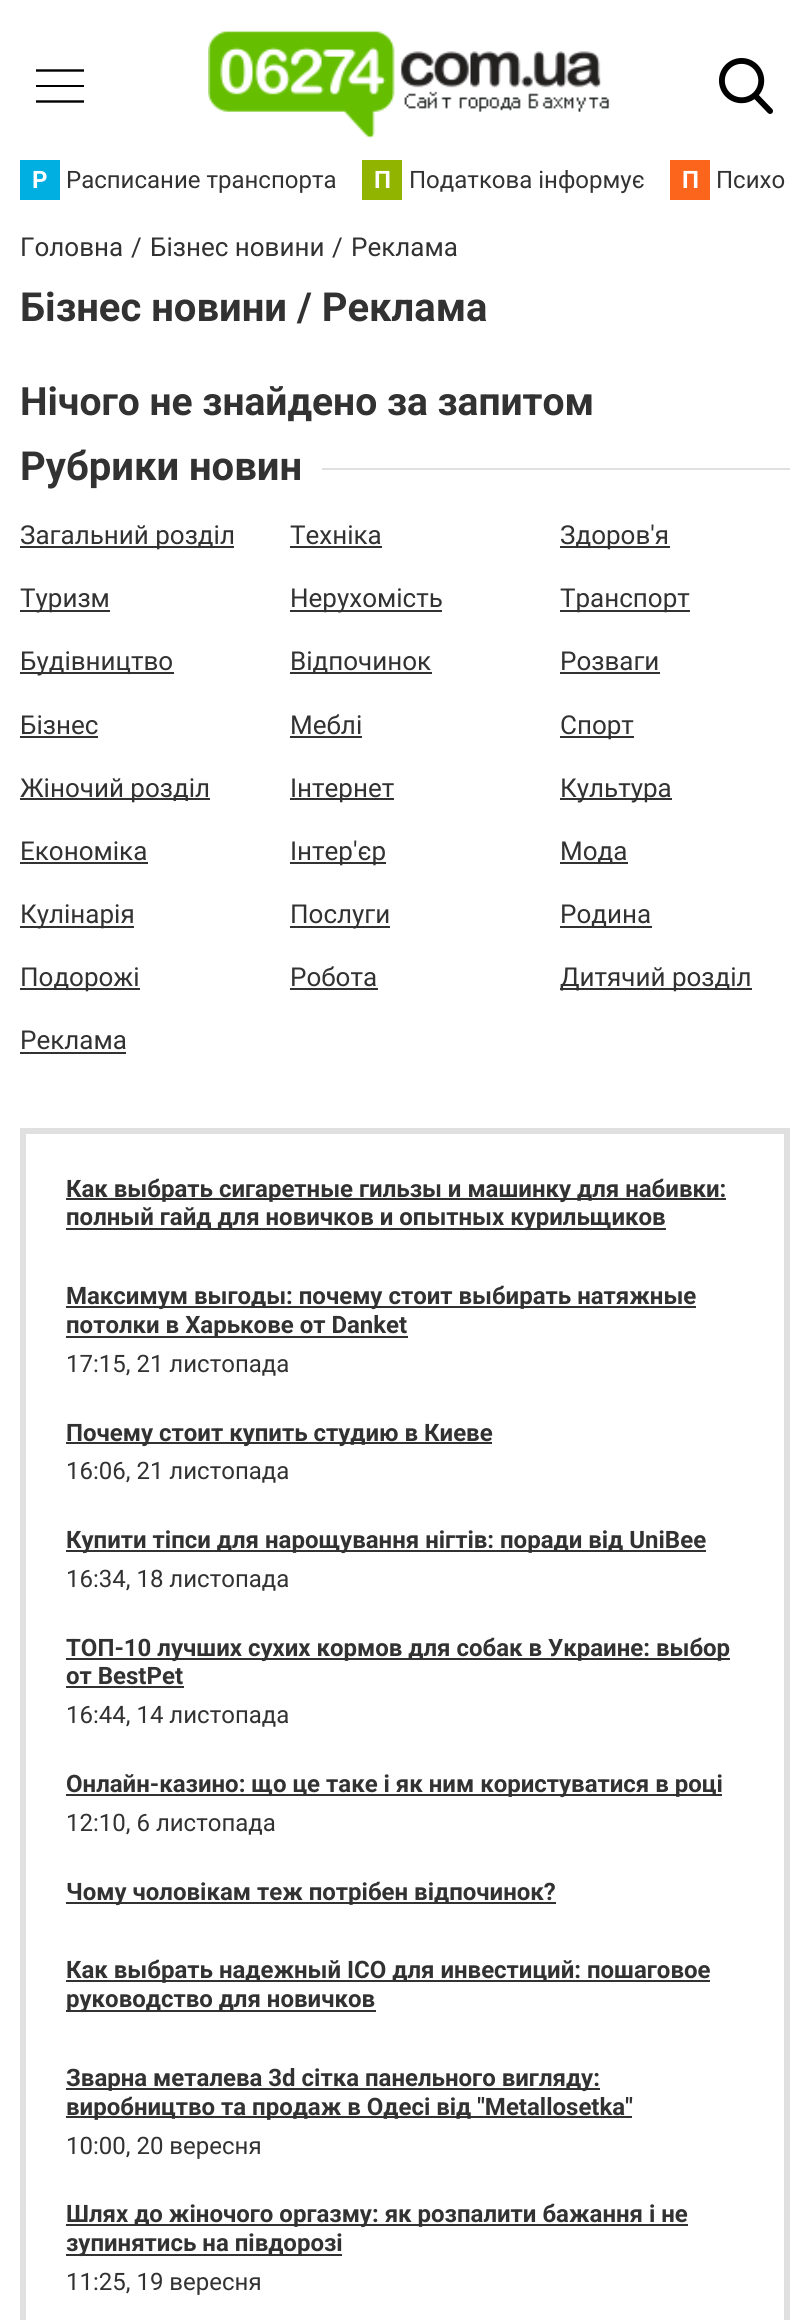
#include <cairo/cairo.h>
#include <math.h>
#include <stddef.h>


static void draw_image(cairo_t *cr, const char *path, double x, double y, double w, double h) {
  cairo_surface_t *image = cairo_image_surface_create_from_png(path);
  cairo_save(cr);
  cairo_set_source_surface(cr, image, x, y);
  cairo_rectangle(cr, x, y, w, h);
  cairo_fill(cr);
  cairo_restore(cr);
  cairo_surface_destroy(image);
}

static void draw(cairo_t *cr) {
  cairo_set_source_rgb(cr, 1, 1, 1);
  cairo_paint(cr);
  cairo_new_path(cr);
  cairo_move_to(cr, 36, 70.5);
  cairo_line_to(cr, 84, 70.5);
  cairo_set_source_rgb(cr, 0, 0, 0);
  cairo_set_line_width(cr, 2.4);
  cairo_stroke(cr);
  cairo_rectangle(cr, 36, 85, 48, 2);
  cairo_fill(cr);
  cairo_new_path(cr);
  cairo_move_to(cr, 36, 101.5);
  cairo_line_to(cr, 84, 101.5);
  cairo_stroke(cr);
  draw_image(cr, "images/1.png", 208, 30, 402, 109);
  draw_image(cr, "images/2.png", 719, 58, 54, 56);
  cairo_set_source_rgb(cr, 0, 175 / 255.0, 225 / 255.0);
  cairo_rectangle(cr, 20, 160, 40, 40);
  cairo_fill(cr);
  cairo_set_source_rgb(cr, 144 / 255.0, 180 / 255.0, 0);
  cairo_rectangle(cr, 362, 160, 40, 40);
  cairo_fill(cr);
  cairo_set_source_rgb(cr, 251 / 255.0, 102 / 255.0, 28 / 255.0);
  cairo_rectangle(cr, 670, 160, 40, 40);
  cairo_fill(cr);
  cairo_set_source_rgb(cr, 224 / 255.0, 224 / 255.0, 224 / 255.0);
  cairo_rectangle(cr, 322, 468, 468, 2);
  cairo_fill(cr);
  cairo_set_source_rgb(cr, 50 / 255.0, 50 / 255.0, 50 / 255.0);
  cairo_rectangle(cr, 20, 546, 214, 2);
  cairo_fill(cr);
  cairo_rectangle(cr, 290, 546, 92, 2);
  cairo_fill(cr);
  cairo_rectangle(cr, 560, 546, 110, 2);
  cairo_fill(cr);
  cairo_rectangle(cr, 20, 610, 90, 2);
  cairo_fill(cr);
  cairo_rectangle(cr, 290, 610, 152, 2);
  cairo_fill(cr);
  cairo_rectangle(cr, 560, 610, 130, 2);
  cairo_fill(cr);
  cairo_rectangle(cr, 20, 672, 154, 2);
  cairo_fill(cr);
  cairo_rectangle(cr, 290, 672, 142, 2);
  cairo_fill(cr);
  cairo_rectangle(cr, 560, 672, 100, 2);
  cairo_fill(cr);
  cairo_rectangle(cr, 20, 736, 78, 2);
  cairo_fill(cr);
  cairo_rectangle(cr, 290, 736, 72, 2);
  cairo_fill(cr);
  cairo_rectangle(cr, 560, 736, 74, 2);
  cairo_fill(cr);
  cairo_rectangle(cr, 20, 798, 190, 2);
  cairo_fill(cr);
  cairo_rectangle(cr, 290, 798, 104, 2);
  cairo_fill(cr);
  cairo_rectangle(cr, 560, 798, 112, 2);
  cairo_fill(cr);
  cairo_rectangle(cr, 20, 862, 128, 2);
  cairo_fill(cr);
  cairo_rectangle(cr, 290, 862, 96, 2);
  cairo_fill(cr);
  cairo_rectangle(cr, 560, 862, 68, 2);
  cairo_fill(cr);
  cairo_rectangle(cr, 20, 926, 114, 2);
  cairo_fill(cr);
  cairo_rectangle(cr, 290, 926, 100, 2);
  cairo_fill(cr);
  cairo_rectangle(cr, 560, 926, 92, 2);
  cairo_fill(cr);
  cairo_rectangle(cr, 20, 988, 120, 2);
  cairo_fill(cr);
  cairo_rectangle(cr, 290, 988, 88, 2);
  cairo_fill(cr);
  cairo_rectangle(cr, 560, 988, 192, 2);
  cairo_fill(cr);
  cairo_rectangle(cr, 20, 1052, 106, 2);
  cairo_fill(cr);
  cairo_rectangle(cr, 23, 1131, 764, 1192);
  cairo_set_source_rgb(cr, 224 / 255.0, 224 / 255.0, 224 / 255.0);
  cairo_set_line_width(cr, 6);
  cairo_stroke(cr);
  cairo_set_source_rgb(cr, 50 / 255.0, 50 / 255.0, 50 / 255.0);
  cairo_rectangle(cr, 66, 1198, 660, 2);
  cairo_fill(cr);
  cairo_rectangle(cr, 66, 1228, 600, 2);
  cairo_fill(cr);
  cairo_rectangle(cr, 66, 1306, 630, 2);
  cairo_fill(cr);
  cairo_rectangle(cr, 66, 1336, 342, 2);
  cairo_fill(cr);
  cairo_rectangle(cr, 66, 1442, 426, 2);
  cairo_fill(cr);
  cairo_rectangle(cr, 66, 1550, 640, 2);
  cairo_fill(cr);
  cairo_rectangle(cr, 66, 1658, 664, 2);
  cairo_fill(cr);
  cairo_rectangle(cr, 66, 1686, 118, 2);
  cairo_fill(cr);
  cairo_rectangle(cr, 66, 1794, 656, 2);
  cairo_fill(cr);
  cairo_rectangle(cr, 66, 1902, 490, 2);
  cairo_fill(cr);
  cairo_rectangle(cr, 66, 1980, 644, 2);
  cairo_fill(cr);
  cairo_rectangle(cr, 66, 2010, 310, 2);
  cairo_fill(cr);
  cairo_rectangle(cr, 66, 2088, 534, 2);
  cairo_fill(cr);
  cairo_rectangle(cr, 66, 2116, 566, 2);
  cairo_fill(cr);
  cairo_rectangle(cr, 66, 2224, 622, 2);
  cairo_fill(cr);
  cairo_rectangle(cr, 66, 2254, 276, 2);
  cairo_fill(cr);
  cairo_select_font_face(cr, "Roboto", CAIRO_FONT_SLANT_NORMAL, CAIRO_FONT_WEIGHT_BOLD);
  cairo_set_font_size(cr, 24);
  cairo_set_source_rgb(cr, 1, 1, 1);
  cairo_move_to(cr, 32, 188);
  cairo_show_text(cr, "Р");
  cairo_select_font_face(cr, "Roboto", CAIRO_FONT_SLANT_NORMAL, CAIRO_FONT_WEIGHT_NORMAL);
  cairo_set_source_rgb(cr, 50 / 255.0, 50 / 255.0, 50 / 255.0);
  cairo_move_to(cr, 66, 188);
  cairo_show_text(cr, "Расписание транспорта");
  cairo_select_font_face(cr, "Roboto", CAIRO_FONT_SLANT_NORMAL, CAIRO_FONT_WEIGHT_BOLD);
  cairo_set_source_rgb(cr, 1, 1, 1);
  cairo_move_to(cr, 374, 188);
  cairo_show_text(cr, "П");
  cairo_select_font_face(cr, "Roboto", CAIRO_FONT_SLANT_NORMAL, CAIRO_FONT_WEIGHT_NORMAL);
  cairo_set_source_rgb(cr, 50 / 255.0, 50 / 255.0, 50 / 255.0);
  cairo_move_to(cr, 409, 188);
  cairo_show_text(cr, "Податкова інформує");
  cairo_select_font_face(cr, "Roboto", CAIRO_FONT_SLANT_NORMAL, CAIRO_FONT_WEIGHT_BOLD);
  cairo_set_source_rgb(cr, 1, 1, 1);
  cairo_move_to(cr, 682, 188);
  cairo_show_text(cr, "П");
  cairo_select_font_face(cr, "Roboto", CAIRO_FONT_SLANT_NORMAL, CAIRO_FONT_WEIGHT_NORMAL);
  cairo_set_source_rgb(cr, 50 / 255.0, 50 / 255.0, 50 / 255.0);
  cairo_move_to(cr, 716, 188);
  cairo_show_text(cr, "Психо");
  cairo_set_font_size(cr, 26);
  cairo_move_to(cr, 20, 256);
  cairo_show_text(cr, "Головна");
  cairo_move_to(cr, 131, 256);
  cairo_show_text(cr, "/");
  cairo_move_to(cr, 150, 256);
  cairo_show_text(cr, "Бізнес новини");
  cairo_move_to(cr, 332, 256);
  cairo_show_text(cr, "/");
  cairo_move_to(cr, 351, 256);
  cairo_show_text(cr, "Реклама");
  cairo_select_font_face(cr, "Roboto", CAIRO_FONT_SLANT_NORMAL, CAIRO_FONT_WEIGHT_BOLD);
  cairo_set_font_size(cr, 40);
  cairo_move_to(cr, 20, 321);
  cairo_show_text(cr, "Бізнес новини / Реклама");
  cairo_set_font_size(cr, 39);
  cairo_move_to(cr, 20, 415);
  cairo_show_text(cr, "Нічого не знайдено за запитом");
  cairo_set_font_size(cr, 40);
  cairo_move_to(cr, 20, 480);
  cairo_show_text(cr, "Рубрики новин");
  cairo_select_font_face(cr, "Roboto", CAIRO_FONT_SLANT_NORMAL, CAIRO_FONT_WEIGHT_NORMAL);
  cairo_set_font_size(cr, 26);
  cairo_move_to(cr, 20, 544);
  cairo_show_text(cr, "Загальний розділ");
  cairo_move_to(cr, 290, 544);
  cairo_show_text(cr, "Техніка");
  cairo_move_to(cr, 560, 544);
  cairo_show_text(cr, "Здоров'я");
  cairo_move_to(cr, 20, 607);
  cairo_show_text(cr, "Туризм");
  cairo_move_to(cr, 290, 607);
  cairo_show_text(cr, "Нерухомість");
  cairo_move_to(cr, 560, 607);
  cairo_show_text(cr, "Транспорт");
  cairo_move_to(cr, 20, 670);
  cairo_show_text(cr, "Будівництво");
  cairo_move_to(cr, 290, 670);
  cairo_show_text(cr, "Відпочинок");
  cairo_move_to(cr, 560, 670);
  cairo_show_text(cr, "Розваги");
  cairo_move_to(cr, 20, 734);
  cairo_show_text(cr, "Бізнес");
  cairo_move_to(cr, 290, 734);
  cairo_show_text(cr, "Меблі");
  cairo_move_to(cr, 560, 734);
  cairo_show_text(cr, "Спорт");
  cairo_move_to(cr, 20, 797);
  cairo_show_text(cr, "Жіночий розділ");
  cairo_move_to(cr, 290, 797);
  cairo_show_text(cr, "Інтернет");
  cairo_move_to(cr, 560, 797);
  cairo_show_text(cr, "Культура");
  cairo_move_to(cr, 20, 860);
  cairo_show_text(cr, "Економіка");
  cairo_move_to(cr, 290, 860);
  cairo_show_text(cr, "Інтер'єр");
  cairo_move_to(cr, 560, 860);
  cairo_show_text(cr, "Мода");
  cairo_move_to(cr, 20, 923);
  cairo_show_text(cr, "Кулінарія");
  cairo_move_to(cr, 290, 923);
  cairo_show_text(cr, "Послуги");
  cairo_move_to(cr, 560, 923);
  cairo_show_text(cr, "Родина");
  cairo_move_to(cr, 20, 986);
  cairo_show_text(cr, "Подорожі");
  cairo_move_to(cr, 290, 986);
  cairo_show_text(cr, "Робота");
  cairo_move_to(cr, 560, 986);
  cairo_show_text(cr, "Дитячий розділ");
  cairo_move_to(cr, 20, 1049);
  cairo_show_text(cr, "Реклама");
  cairo_select_font_face(cr, "Roboto", CAIRO_FONT_SLANT_NORMAL, CAIRO_FONT_WEIGHT_BOLD);
  cairo_set_font_size(cr, 24);
  cairo_move_to(cr, 66, 1197);
  cairo_show_text(cr, "Как выбрать сигаретные гильзы и машинку для набивки:");
  cairo_move_to(cr, 66, 1225);
  cairo_show_text(cr, "полный гайд для новичков и опытных курильщиков");
  cairo_move_to(cr, 66, 1304);
  cairo_show_text(cr, "Максимум выгоды: почему стоит выбирать натяжные");
  cairo_move_to(cr, 66, 1333);
  cairo_show_text(cr, "потолки в Харькове от Danket");
  cairo_select_font_face(cr, "Roboto", CAIRO_FONT_SLANT_NORMAL, CAIRO_FONT_WEIGHT_NORMAL);
  cairo_move_to(cr, 66, 1372);
  cairo_show_text(cr, "17:15, 21 листопада");
  cairo_select_font_face(cr, "Roboto", CAIRO_FONT_SLANT_NORMAL, CAIRO_FONT_WEIGHT_BOLD);
  cairo_move_to(cr, 66, 1441);
  cairo_show_text(cr, "Почему стоит купить студию в Киеве");
  cairo_select_font_face(cr, "Roboto", CAIRO_FONT_SLANT_NORMAL, CAIRO_FONT_WEIGHT_NORMAL);
  cairo_move_to(cr, 66, 1479);
  cairo_show_text(cr, "16:06, 21 листопада");
  cairo_select_font_face(cr, "Roboto", CAIRO_FONT_SLANT_NORMAL, CAIRO_FONT_WEIGHT_BOLD);
  cairo_move_to(cr, 66, 1548);
  cairo_show_text(cr, "Купити тіпси для нарощування нігтів: поради від UniBee");
  cairo_select_font_face(cr, "Roboto", CAIRO_FONT_SLANT_NORMAL, CAIRO_FONT_WEIGHT_NORMAL);
  cairo_move_to(cr, 66, 1587);
  cairo_show_text(cr, "16:34, 18 листопада");
  cairo_select_font_face(cr, "Roboto", CAIRO_FONT_SLANT_NORMAL, CAIRO_FONT_WEIGHT_BOLD);
  cairo_move_to(cr, 66, 1656);
  cairo_show_text(cr, "ТОП-10 лучших сухих кормов для собак в Украине: выбор");
  cairo_move_to(cr, 66, 1684);
  cairo_show_text(cr, "от BestPet");
  cairo_select_font_face(cr, "Roboto", CAIRO_FONT_SLANT_NORMAL, CAIRO_FONT_WEIGHT_NORMAL);
  cairo_move_to(cr, 66, 1723);
  cairo_show_text(cr, "16:44, 14 листопада");
  cairo_select_font_face(cr, "Roboto", CAIRO_FONT_SLANT_NORMAL, CAIRO_FONT_WEIGHT_BOLD);
  cairo_move_to(cr, 66, 1792);
  cairo_show_text(cr, "Онлайн-казино: що це таке і як ним користуватися в році");
  cairo_select_font_face(cr, "Roboto", CAIRO_FONT_SLANT_NORMAL, CAIRO_FONT_WEIGHT_NORMAL);
  cairo_move_to(cr, 66, 1831);
  cairo_show_text(cr, "12:10, 6 листопада");
  cairo_select_font_face(cr, "Roboto", CAIRO_FONT_SLANT_NORMAL, CAIRO_FONT_WEIGHT_BOLD);
  cairo_move_to(cr, 66, 1900);
  cairo_show_text(cr, "Чому чоловікам теж потрібен відпочинок?");
  cairo_move_to(cr, 66, 1978);
  cairo_show_text(cr, "Как выбрать надежный ICO для инвестиций: пошаговое");
  cairo_move_to(cr, 66, 2007);
  cairo_show_text(cr, "руководство для новичков");
  cairo_move_to(cr, 66, 2086);
  cairo_show_text(cr, "Зварна металева 3d сітка панельного вигляду:");
  cairo_move_to(cr, 66, 2115);
  cairo_show_text(cr, "виробництво та продаж в Одесі від \"Metallosetka\"");
  cairo_select_font_face(cr, "Roboto", CAIRO_FONT_SLANT_NORMAL, CAIRO_FONT_WEIGHT_NORMAL);
  cairo_move_to(cr, 66, 2154);
  cairo_show_text(cr, "10:00, 20 вересня");
  cairo_select_font_face(cr, "Roboto", CAIRO_FONT_SLANT_NORMAL, CAIRO_FONT_WEIGHT_BOLD);
  cairo_move_to(cr, 66, 2222);
  cairo_show_text(cr, "Шлях до жіночого оргазму: як розпалити бажання і не");
  cairo_move_to(cr, 66, 2251);
  cairo_show_text(cr, "зупинятись на півдорозі");
  cairo_select_font_face(cr, "Roboto", CAIRO_FONT_SLANT_NORMAL, CAIRO_FONT_WEIGHT_NORMAL);
  cairo_move_to(cr, 66, 2290);
  cairo_show_text(cr, "11:25, 19 вересня");
}

int main(void) {
  cairo_surface_t *surface = cairo_image_surface_create(CAIRO_FORMAT_RGB24, 809, 2320);
  cairo_t *cr = cairo_create(surface);
  cairo_font_options_t *options = cairo_font_options_create();
  cairo_font_options_set_hint_metrics(options, CAIRO_HINT_METRICS_OFF);
  cairo_font_options_set_hint_style(options, CAIRO_HINT_STYLE_NONE);
  cairo_set_font_options(cr, options);
  cairo_set_miter_limit(cr, 4);
  draw(cr);
  cairo_surface_write_to_png(surface, "out.png");
  cairo_font_options_destroy(options);
  cairo_destroy(cr);
  cairo_surface_destroy(surface);
  return 0;
}
